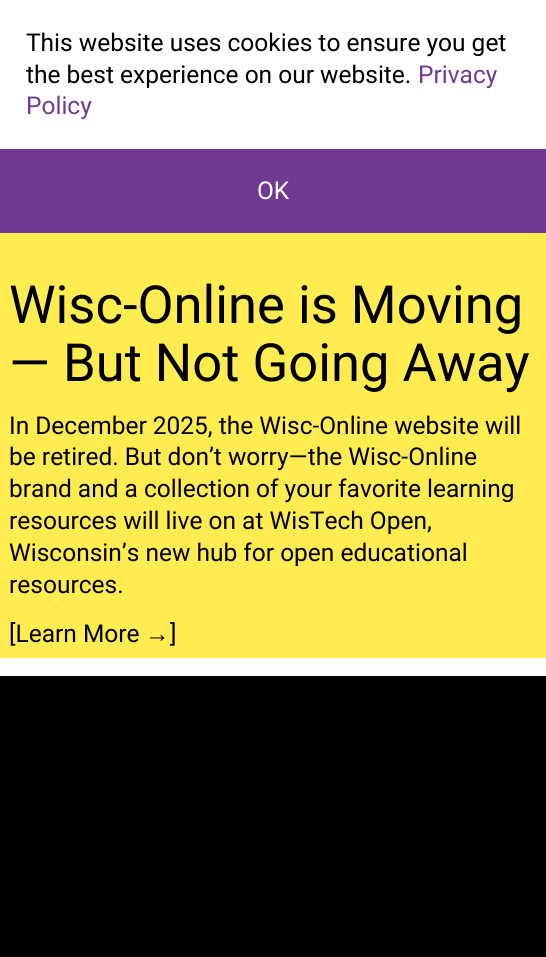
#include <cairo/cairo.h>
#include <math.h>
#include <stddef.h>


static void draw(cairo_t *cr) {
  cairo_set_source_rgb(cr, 1, 1, 1);
  cairo_paint(cr);
  cairo_set_source_rgb(cr, 114 / 255.0, 57 / 255.0, 147 / 255.0);
  cairo_rectangle(cr, 0, 149, 546, 84);
  cairo_fill(cr);
  cairo_set_source_rgb(cr, 1, 236 / 255.0, 81 / 255.0);
  cairo_rectangle(cr, 0, 233, 546, 425);
  cairo_fill(cr);
  cairo_set_source_rgb(cr, 0, 0, 0);
  cairo_rectangle(cr, 0, 676, 546, 281);
  cairo_fill(cr);
  cairo_select_font_face(cr, "Roboto", CAIRO_FONT_SLANT_NORMAL, CAIRO_FONT_WEIGHT_NORMAL);
  cairo_set_font_size(cr, 24.5);
  cairo_move_to(cr, 26, 51);
  cairo_show_text(cr, "This website uses cookies to ensure you get");
  cairo_move_to(cr, 26, 83);
  cairo_show_text(cr, "the best experience on our website.");
  cairo_set_source_rgb(cr, 114 / 255.0, 57 / 255.0, 147 / 255.0);
  cairo_move_to(cr, 418, 83);
  cairo_show_text(cr, "Privacy");
  cairo_move_to(cr, 26, 114);
  cairo_show_text(cr, "Policy");
  cairo_set_source_rgb(cr, 1, 1, 1);
  cairo_move_to(cr, 257, 199);
  cairo_show_text(cr, "OK");
  cairo_set_font_size(cr, 52.5);
  cairo_set_source_rgb(cr, 0, 0, 0);
  cairo_move_to(cr, 9, 323);
  cairo_show_text(cr, "Wisc-Online is Moving");
  cairo_move_to(cr, 9, 381);
  cairo_show_text(cr, "— But Not Going Away");
  cairo_set_font_size(cr, 24.5);
  cairo_move_to(cr, 9, 434);
  cairo_show_text(cr, "In December 2025, the Wisc-Online website will");
  cairo_move_to(cr, 9, 465);
  cairo_show_text(cr, "be retired. But don’t worry—the Wisc-Online");
  cairo_move_to(cr, 9, 497);
  cairo_show_text(cr, "brand and a collection of your favorite learning");
  cairo_move_to(cr, 9, 529);
  cairo_show_text(cr, "resources will live on at WisTech Open,");
  cairo_move_to(cr, 9, 561);
  cairo_show_text(cr, "Wisconsin’s new hub for open educational");
  cairo_move_to(cr, 9, 593);
  cairo_show_text(cr, "resources.");
  cairo_move_to(cr, 9, 642);
  cairo_show_text(cr, "[Learn More");
  cairo_select_font_face(cr, "Liberation Sans", CAIRO_FONT_SLANT_NORMAL, CAIRO_FONT_WEIGHT_NORMAL);
  cairo_move_to(cr, 145, 642);
  cairo_show_text(cr, "→");
  cairo_select_font_face(cr, "Roboto", CAIRO_FONT_SLANT_NORMAL, CAIRO_FONT_WEIGHT_NORMAL);
  cairo_move_to(cr, 170, 642);
  cairo_show_text(cr, "]");
}

int main(void) {
  cairo_surface_t *surface = cairo_image_surface_create(CAIRO_FORMAT_RGB24, 546, 957);
  cairo_t *cr = cairo_create(surface);
  cairo_font_options_t *options = cairo_font_options_create();
  cairo_font_options_set_hint_metrics(options, CAIRO_HINT_METRICS_OFF);
  cairo_font_options_set_hint_style(options, CAIRO_HINT_STYLE_NONE);
  cairo_set_font_options(cr, options);
  cairo_set_miter_limit(cr, 4);
  draw(cr);
  cairo_surface_write_to_png(surface, "out.png");
  cairo_font_options_destroy(options);
  cairo_destroy(cr);
  cairo_surface_destroy(surface);
  return 0;
}
